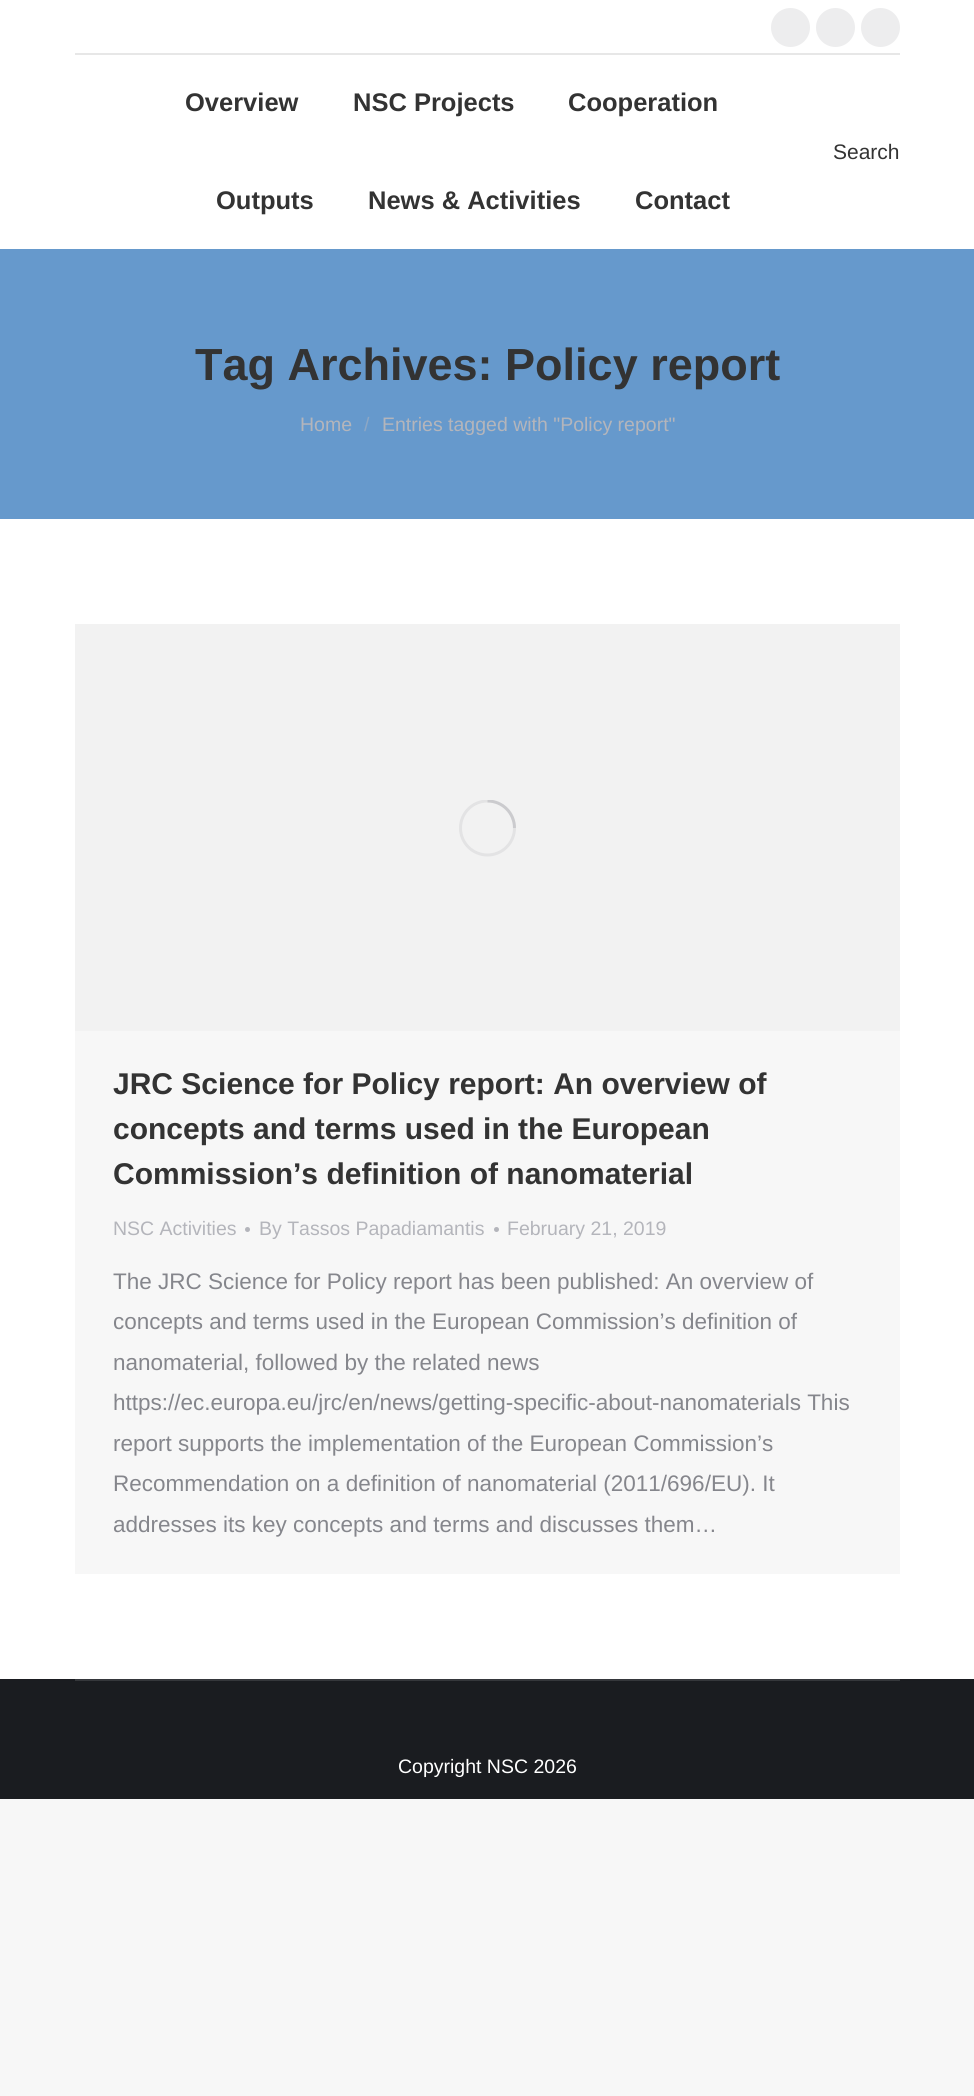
#include <cairo/cairo.h>
#include <math.h>
#include <stddef.h>


static void draw(cairo_t *cr) {
  cairo_set_source_rgb(cr, 247 / 255.0, 247 / 255.0, 247 / 255.0);
  cairo_paint(cr);
  cairo_set_source_rgb(cr, 1, 1, 1);
  cairo_rectangle(cr, 0, 0, 974, 1679);
  cairo_fill(cr);
  cairo_set_source_rgb(cr, 237 / 255.0, 237 / 255.0, 238 / 255.0);
  cairo_arc(cr, 790.5, 27.5, 19.5, 0, 2 * M_PI);
  cairo_fill(cr);
  cairo_arc(cr, 835.5, 27.5, 19.5, 0, 2 * M_PI);
  cairo_fill(cr);
  cairo_arc(cr, 880.5, 27.5, 19.5, 0, 2 * M_PI);
  cairo_fill(cr);
  cairo_set_source_rgb(cr, 231 / 255.0, 231 / 255.0, 231 / 255.0);
  cairo_rectangle(cr, 75, 53, 825, 2);
  cairo_fill(cr);
  cairo_set_source_rgb(cr, 102 / 255.0, 153 / 255.0, 204 / 255.0);
  cairo_rectangle(cr, 0, 249, 974, 270);
  cairo_fill(cr);
  cairo_set_source_rgb(cr, 247 / 255.0, 247 / 255.0, 247 / 255.0);
  cairo_rectangle(cr, 75, 1031, 825, 543);
  cairo_fill(cr);
  cairo_set_source_rgb(cr, 242 / 255.0, 242 / 255.0, 242 / 255.0);
  cairo_rectangle(cr, 75, 624, 825, 407);
  cairo_fill(cr);
  cairo_save(cr);
  cairo_rectangle(cr, 459, 800, 57, 57);
  cairo_clip(cr);
  cairo_arc(cr, 487.5, 828, 27, 0, 2 * M_PI);
  cairo_set_source_rgb(cr, 227 / 255.0, 227 / 255.0, 228 / 255.0);
  cairo_set_line_width(cr, 3);
  cairo_stroke(cr);
  cairo_new_path(cr);
  cairo_move_to(cr, 514.5, 828);
  cairo_curve_to(cr, 514.5, 813, 502.5, 801, 487.5, 801);
  cairo_set_source_rgba(cr, 133 / 255.0, 134 / 255.0, 140 / 255.0, 0.25);
  cairo_stroke(cr);
  cairo_restore(cr);
  cairo_set_source_rgb(cr, 180 / 255.0, 181 / 255.0, 187 / 255.0);
  cairo_arc(cr, 247.5, 1229.5, 2.5, 0, 2 * M_PI);
  cairo_fill(cr);
  cairo_arc(cr, 496.5, 1229.5, 2.5, 0, 2 * M_PI);
  cairo_fill(cr);
  cairo_set_source_rgb(cr, 26 / 255.0, 28 / 255.0, 32 / 255.0);
  cairo_rectangle(cr, 0, 1679, 974, 120);
  cairo_fill(cr);
  cairo_set_source_rgb(cr, 53 / 255.0, 55 / 255.0, 59 / 255.0);
  cairo_rectangle(cr, 75, 1679, 825, 2);
  cairo_fill(cr);
  cairo_select_font_face(cr, "Liberation Sans", CAIRO_FONT_SLANT_NORMAL, CAIRO_FONT_WEIGHT_BOLD);
  cairo_set_font_size(cr, 25.5);
  cairo_set_source_rgb(cr, 51 / 255.0, 51 / 255.0, 51 / 255.0);
  cairo_move_to(cr, 185, 111);
  cairo_show_text(cr, "Overview");
  cairo_move_to(cr, 353, 111);
  cairo_show_text(cr, "NSC Projects");
  cairo_move_to(cr, 568, 111);
  cairo_show_text(cr, "Cooperation");
  cairo_move_to(cr, 216, 209);
  cairo_show_text(cr, "Outputs");
  cairo_move_to(cr, 368, 209);
  cairo_show_text(cr, "News & Activities");
  cairo_move_to(cr, 635, 209);
  cairo_show_text(cr, "Contact");
  cairo_select_font_face(cr, "Liberation Sans", CAIRO_FONT_SLANT_NORMAL, CAIRO_FONT_WEIGHT_NORMAL);
  cairo_set_font_size(cr, 21);
  cairo_move_to(cr, 833, 159);
  cairo_show_text(cr, "Search");
  cairo_select_font_face(cr, "Liberation Sans", CAIRO_FONT_SLANT_NORMAL, CAIRO_FONT_WEIGHT_BOLD);
  cairo_set_font_size(cr, 45);
  cairo_move_to(cr, 195, 380);
  cairo_show_text(cr, "Tag Archives: Policy report");
  cairo_select_font_face(cr, "Liberation Sans", CAIRO_FONT_SLANT_NORMAL, CAIRO_FONT_WEIGHT_NORMAL);
  cairo_set_font_size(cr, 19.5);
  cairo_set_source_rgb(cr, 180 / 255.0, 181 / 255.0, 187 / 255.0);
  cairo_move_to(cr, 300, 431);
  cairo_show_text(cr, "Home");
  cairo_set_source_rgb(cr, 141 / 255.0, 167 / 255.0, 196 / 255.0);
  cairo_move_to(cr, 364, 431);
  cairo_show_text(cr, "/");
  cairo_set_source_rgb(cr, 180 / 255.0, 181 / 255.0, 187 / 255.0);
  cairo_move_to(cr, 382, 431);
  cairo_show_text(cr, "Entries tagged with \"Policy report\"");
  cairo_select_font_face(cr, "Liberation Sans", CAIRO_FONT_SLANT_NORMAL, CAIRO_FONT_WEIGHT_BOLD);
  cairo_set_font_size(cr, 30);
  cairo_set_source_rgb(cr, 51 / 255.0, 51 / 255.0, 51 / 255.0);
  cairo_move_to(cr, 113, 1094);
  cairo_show_text(cr, "JRC Science for Policy report: An overview of");
  cairo_move_to(cr, 113, 1139);
  cairo_show_text(cr, "concepts and terms used in the European");
  cairo_move_to(cr, 113, 1184);
  cairo_show_text(cr, "Commission’s definition of nanomaterial");
  cairo_select_font_face(cr, "Liberation Sans", CAIRO_FONT_SLANT_NORMAL, CAIRO_FONT_WEIGHT_NORMAL);
  cairo_set_font_size(cr, 19.5);
  cairo_set_source_rgb(cr, 180 / 255.0, 181 / 255.0, 187 / 255.0);
  cairo_move_to(cr, 113, 1235);
  cairo_show_text(cr, "NSC Activities");
  cairo_move_to(cr, 259, 1235);
  cairo_show_text(cr, "By Tassos Papadiamantis");
  cairo_move_to(cr, 507, 1235);
  cairo_show_text(cr, "February 21, 2019");
  cairo_set_font_size(cr, 22.5);
  cairo_set_source_rgb(cr, 133 / 255.0, 134 / 255.0, 140 / 255.0);
  cairo_move_to(cr, 113, 1289);
  cairo_show_text(cr, "The JRC Science for Policy report has been published: An overview of");
  cairo_move_to(cr, 113, 1329);
  cairo_show_text(cr, "concepts and terms used in the European Commission’s definition of");
  cairo_move_to(cr, 113, 1370);
  cairo_show_text(cr, "nanomaterial, followed by the related news");
  cairo_move_to(cr, 113, 1410);
  cairo_show_text(cr, "https://ec.europa.eu/jrc/en/news/getting-specific-about-nanomaterials This");
  cairo_move_to(cr, 113, 1451);
  cairo_show_text(cr, "report supports the implementation of the European Commission’s");
  cairo_move_to(cr, 113, 1491);
  cairo_show_text(cr, "Recommendation on a definition of nanomaterial (2011/696/EU). It");
  cairo_move_to(cr, 113, 1532);
  cairo_show_text(cr, "addresses its key concepts and terms and discusses them…");
  cairo_set_font_size(cr, 19.5);
  cairo_set_source_rgb(cr, 1, 1, 1);
  cairo_move_to(cr, 398, 1773);
  cairo_show_text(cr, "Copyright NSC 2026");
}

int main(void) {
  cairo_surface_t *surface = cairo_image_surface_create(CAIRO_FORMAT_RGB24, 974, 2096);
  cairo_t *cr = cairo_create(surface);
  cairo_font_options_t *options = cairo_font_options_create();
  cairo_font_options_set_hint_metrics(options, CAIRO_HINT_METRICS_OFF);
  cairo_font_options_set_hint_style(options, CAIRO_HINT_STYLE_NONE);
  cairo_set_font_options(cr, options);
  cairo_set_miter_limit(cr, 4);
  draw(cr);
  cairo_surface_write_to_png(surface, "out.png");
  cairo_font_options_destroy(options);
  cairo_destroy(cr);
  cairo_surface_destroy(surface);
  return 0;
}
